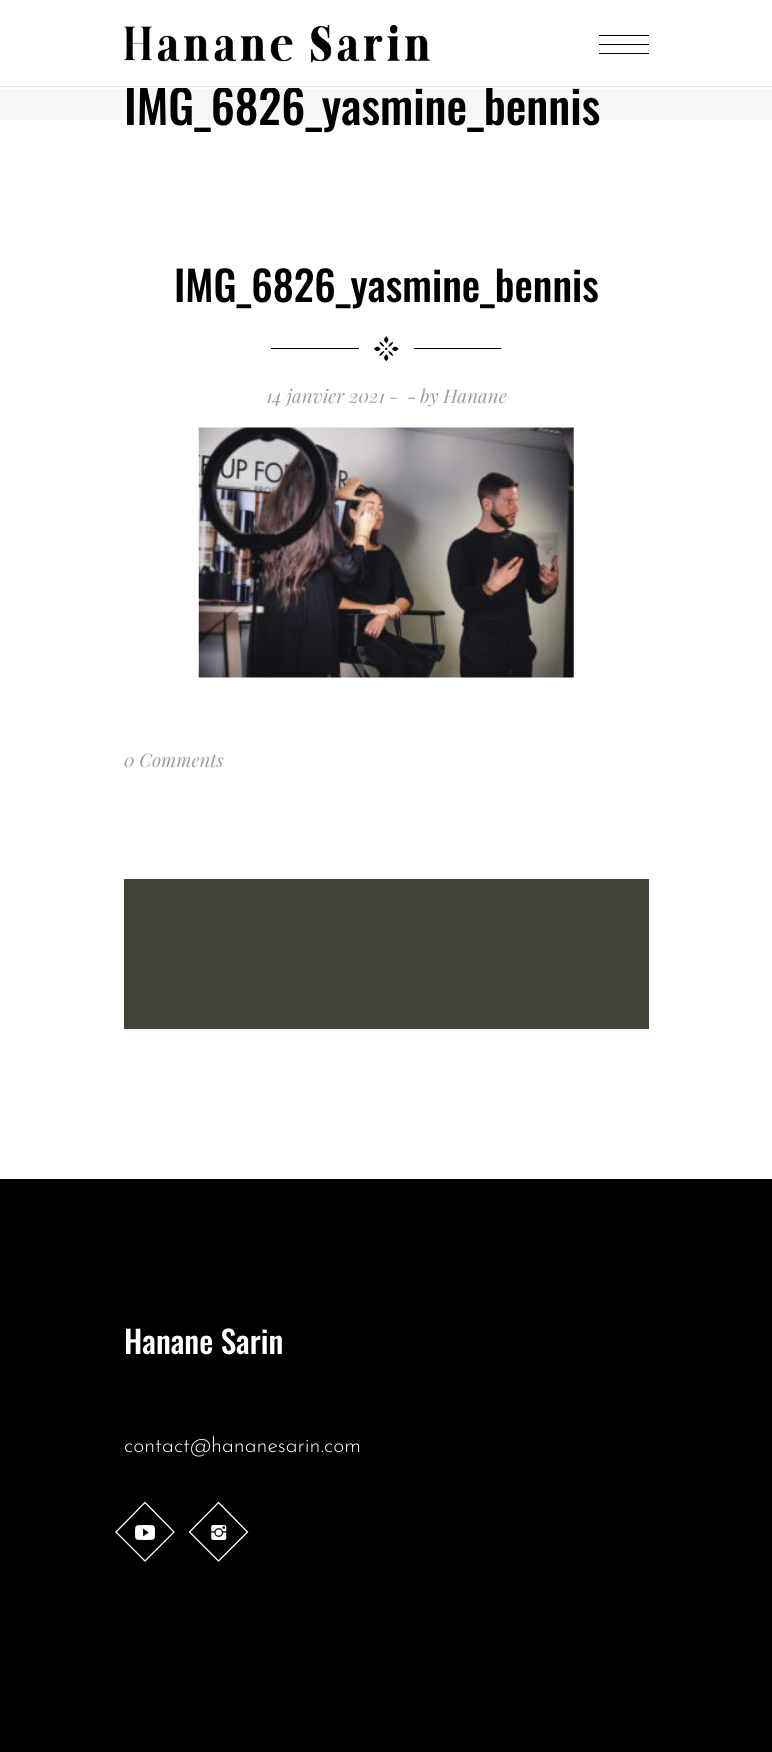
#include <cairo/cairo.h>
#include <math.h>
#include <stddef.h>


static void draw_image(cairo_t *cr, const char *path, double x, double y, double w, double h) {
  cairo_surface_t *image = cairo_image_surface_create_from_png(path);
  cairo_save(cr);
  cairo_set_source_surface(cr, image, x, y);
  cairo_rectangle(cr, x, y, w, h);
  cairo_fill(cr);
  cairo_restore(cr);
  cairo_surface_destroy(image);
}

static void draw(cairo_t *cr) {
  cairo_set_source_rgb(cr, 1, 1, 1);
  cairo_paint(cr);
  cairo_set_source_rgb(cr, 230 / 255.0, 230 / 255.0, 230 / 255.0);
  cairo_rectangle(cr, 0, 86, 772, 1);
  cairo_fill(cr);
  draw_image(cr, "images/1.png", 123, 25, 307, 38);
  cairo_set_source_rgb(cr, 0, 0, 0);
  cairo_rectangle(cr, 599, 35, 50, 1);
  cairo_fill(cr);
  cairo_rectangle(cr, 599, 44, 50, 1);
  cairo_fill(cr);
  cairo_rectangle(cr, 599, 53, 50, 1);
  cairo_fill(cr);
  cairo_set_source_rgb(cr, 246 / 255.0, 246 / 255.0, 246 / 255.0);
  cairo_rectangle(cr, 0, 89, 772, 31);
  cairo_fill(cr);
  cairo_set_source_rgb(cr, 0, 0, 0);
  cairo_rectangle(cr, 271, 348, 88, 1);
  cairo_fill(cr);
  draw_image(cr, "images/2.png", 373, 336, 26, 26);
  cairo_rectangle(cr, 414, 348, 87, 1);
  cairo_fill(cr);
  draw_image(cr, "images/3.png", 198, 427, 376, 251);
  cairo_set_source_rgb(cr, 64 / 255.0, 68 / 255.0, 57 / 255.0);
  cairo_rectangle(cr, 124, 879, 525, 150);
  cairo_fill(cr);
  cairo_set_source_rgb(cr, 0, 0, 0);
  cairo_rectangle(cr, 0, 1179, 772, 573);
  cairo_fill(cr);
  cairo_new_path(cr);
  cairo_move_to(cr, 145, 1502.5);
  cairo_line_to(cr, 174, 1532);
  cairo_line_to(cr, 145, 1561);
  cairo_line_to(cr, 116, 1532);
  cairo_close_path(cr);
  cairo_set_source_rgb(cr, 1, 1, 1);
  cairo_set_line_width(cr, 1.3);
  cairo_stroke(cr);
  draw_image(cr, "images/4.png", 135, 1525, 20, 15);
  cairo_new_path(cr);
  cairo_move_to(cr, 218.5, 1502.5);
  cairo_line_to(cr, 247.5, 1532);
  cairo_line_to(cr, 218.5, 1561);
  cairo_line_to(cr, 189.5, 1532);
  cairo_close_path(cr);
  cairo_stroke(cr);
  draw_image(cr, "images/5.png", 211, 1525, 16, 15);
  cairo_select_font_face(cr, "Oswald Medium", CAIRO_FONT_SLANT_NORMAL, CAIRO_FONT_WEIGHT_NORMAL);
  cairo_set_font_size(cr, 46.25);
  cairo_set_source_rgb(cr, 0, 0, 0);
  cairo_move_to(cr, 124, 125);
  cairo_show_text(cr, "IMG_6826_yasmine_bennis");
  cairo_set_source_rgb(cr, 1, 1, 1);
  cairo_rectangle(cr, 126, 87, 367, 1);
  cairo_fill(cr);
  cairo_set_font_size(cr, 41.25);
  cairo_set_source_rgb(cr, 0, 0, 0);
  cairo_move_to(cr, 174, 302);
  cairo_show_text(cr, "IMG_6826_yasmine_bennis");
  cairo_select_font_face(cr, "Playfair Display", CAIRO_FONT_SLANT_ITALIC, CAIRO_FONT_WEIGHT_NORMAL);
  cairo_set_font_size(cr, 18.75);
  cairo_set_source_rgb(cr, 157 / 255.0, 157 / 255.0, 157 / 255.0);
  cairo_move_to(cr, 266, 403);
  cairo_show_text(cr, "14 janvier 2021");
  cairo_move_to(cr, 389, 403);
  cairo_show_text(cr, "-");
  cairo_move_to(cr, 407, 403);
  cairo_show_text(cr, "-");
  cairo_move_to(cr, 420, 403);
  cairo_show_text(cr, "by Hanane");
  cairo_move_to(cr, 124, 767);
  cairo_show_text(cr, "0 Comments");
  cairo_select_font_face(cr, "Oswald Medium", CAIRO_FONT_SLANT_NORMAL, CAIRO_FONT_WEIGHT_NORMAL);
  cairo_set_font_size(cr, 31.25);
  cairo_set_source_rgb(cr, 1, 1, 1);
  cairo_move_to(cr, 124, 1354);
  cairo_show_text(cr, "Hanane Sarin");
  cairo_select_font_face(cr, "Josefin Sans Light", CAIRO_FONT_SLANT_NORMAL, CAIRO_FONT_WEIGHT_NORMAL);
  cairo_set_font_size(cr, 21.25);
  cairo_move_to(cr, 124, 1452);
  cairo_show_text(cr, "contact@hananesarin.com");
}

int main(void) {
  cairo_surface_t *surface = cairo_image_surface_create(CAIRO_FORMAT_RGB24, 772, 1752);
  cairo_t *cr = cairo_create(surface);
  cairo_font_options_t *options = cairo_font_options_create();
  cairo_font_options_set_hint_metrics(options, CAIRO_HINT_METRICS_OFF);
  cairo_font_options_set_hint_style(options, CAIRO_HINT_STYLE_NONE);
  cairo_set_font_options(cr, options);
  cairo_set_miter_limit(cr, 4);
  draw(cr);
  cairo_surface_write_to_png(surface, "out.png");
  cairo_font_options_destroy(options);
  cairo_destroy(cr);
  cairo_surface_destroy(surface);
  return 0;
}
